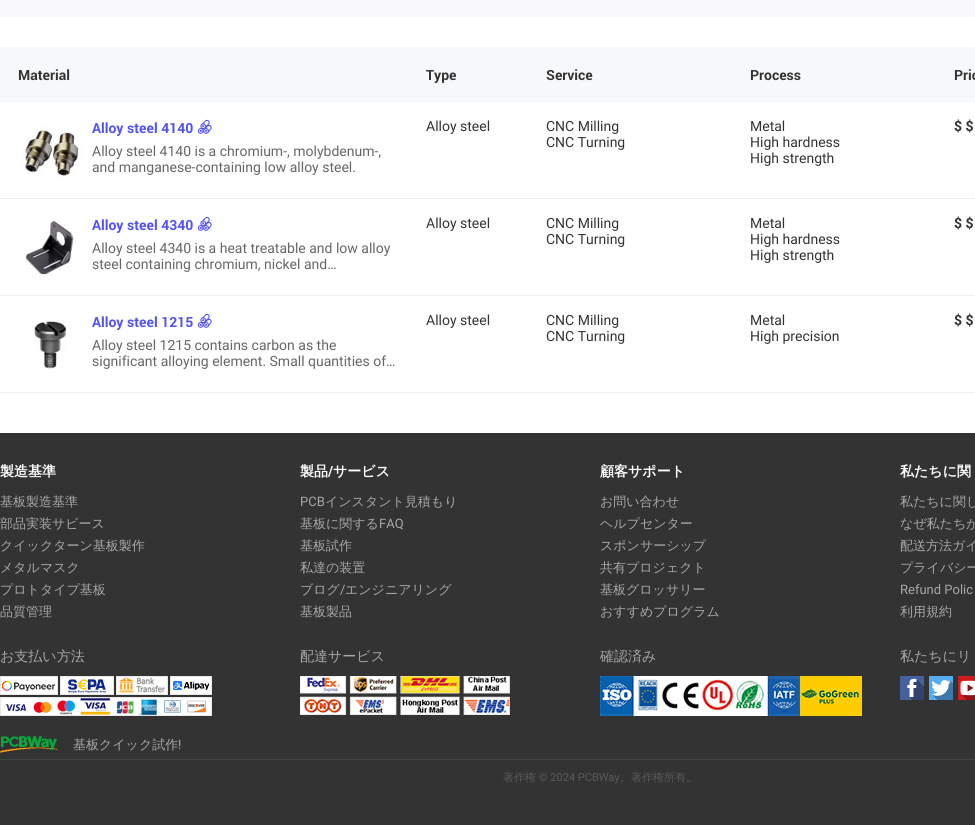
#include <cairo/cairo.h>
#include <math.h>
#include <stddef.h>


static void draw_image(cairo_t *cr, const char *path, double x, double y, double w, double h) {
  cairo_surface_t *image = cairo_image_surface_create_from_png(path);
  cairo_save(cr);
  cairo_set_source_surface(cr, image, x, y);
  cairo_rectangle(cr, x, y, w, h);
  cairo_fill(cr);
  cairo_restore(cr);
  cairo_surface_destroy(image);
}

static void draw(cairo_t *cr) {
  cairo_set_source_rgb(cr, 1, 1, 1);
  cairo_paint(cr);
  cairo_set_source_rgb(cr, 249 / 255.0, 248 / 255.0, 253 / 255.0);
  cairo_rectangle(cr, 0, 0, 975, 17);
  cairo_fill(cr);
  cairo_set_source_rgb(cr, 246 / 255.0, 248 / 255.0, 250 / 255.0);
  cairo_rectangle(cr, 0, 47, 975, 55);
  cairo_fill(cr);
  draw_image(cr, "images/1.png", 18, 118, 64, 64);
  draw_image(cr, "images/2.png", 197, 119, 15, 15);
  cairo_set_source_rgb(cr, 242 / 255.0, 242 / 255.0, 242 / 255.0);
  cairo_rectangle(cr, 0, 198, 975, 1);
  cairo_fill(cr);
  draw_image(cr, "images/3.png", 18, 215, 64, 64);
  draw_image(cr, "images/2.png", 197, 216, 15, 15);
  cairo_rectangle(cr, 0, 295, 975, 1);
  cairo_fill(cr);
  draw_image(cr, "images/4.png", 18, 312, 64, 64);
  draw_image(cr, "images/2.png", 197, 313, 15, 15);
  cairo_rectangle(cr, 0, 392, 975, 1);
  cairo_fill(cr);
  cairo_set_source_rgb(cr, 51 / 255.0, 51 / 255.0, 51 / 255.0);
  cairo_rectangle(cr, 0, 433, 975, 392);
  cairo_fill(cr);
  draw_image(cr, "images/5.png", 0, 676, 212, 40);
  draw_image(cr, "images/6.png", 300, 676, 210, 39);
  draw_image(cr, "images/7.png", 600, 676, 200, 40);
  draw_image(cr, "images/8.png", 800, 676, 62, 40);
  draw_image(cr, "images/9.png", 900, 676, 24, 24);
  draw_image(cr, "images/10.png", 929, 676, 24, 24);
  draw_image(cr, "images/11.png", 958, 676, 17, 24);
  cairo_set_source_rgb(cr, 68 / 255.0, 68 / 255.0, 68 / 255.0);
  cairo_rectangle(cr, 0, 759, 975, 1);
  cairo_fill(cr);
  draw_image(cr, "images/12.png", 0, 736, 58, 17);
  cairo_select_font_face(cr, "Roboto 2", CAIRO_FONT_SLANT_NORMAL, CAIRO_FONT_WEIGHT_BOLD);
  cairo_set_font_size(cr, 14);
  cairo_set_source_rgb(cr, 51 / 255.0, 51 / 255.0, 51 / 255.0);
  cairo_move_to(cr, 18, 80);
  cairo_show_text(cr, "Material");
  cairo_move_to(cr, 426, 80);
  cairo_show_text(cr, "Type");
  cairo_move_to(cr, 546, 80);
  cairo_show_text(cr, "Service");
  cairo_move_to(cr, 750, 80);
  cairo_show_text(cr, "Process");
  cairo_move_to(cr, 954, 80);
  cairo_show_text(cr, "Pric");
  cairo_set_source_rgb(cr, 82 / 255.0, 82 / 255.0, 242 / 255.0);
  cairo_move_to(cr, 92, 133);
  cairo_show_text(cr, "Alloy steel 4140");
  cairo_select_font_face(cr, "Roboto", CAIRO_FONT_SLANT_NORMAL, CAIRO_FONT_WEIGHT_NORMAL);
  cairo_set_source_rgb(cr, 102 / 255.0, 102 / 255.0, 102 / 255.0);
  cairo_move_to(cr, 92, 156);
  cairo_show_text(cr, "Alloy steel 4140 is a chromium-, molybdenum-,");
  cairo_move_to(cr, 92, 172);
  cairo_show_text(cr, "and manganese-containing low alloy steel.");
  cairo_set_source_rgb(cr, 51 / 255.0, 51 / 255.0, 51 / 255.0);
  cairo_move_to(cr, 426, 131);
  cairo_show_text(cr, "Alloy steel");
  cairo_move_to(cr, 546, 131);
  cairo_show_text(cr, "CNC Milling");
  cairo_move_to(cr, 546, 147);
  cairo_show_text(cr, "CNC Turning");
  cairo_move_to(cr, 750, 131);
  cairo_show_text(cr, "Metal");
  cairo_move_to(cr, 750, 147);
  cairo_show_text(cr, "High hardness");
  cairo_move_to(cr, 750, 163);
  cairo_show_text(cr, "High strength");
  cairo_select_font_face(cr, "Roboto", CAIRO_FONT_SLANT_NORMAL, CAIRO_FONT_WEIGHT_BOLD);
  cairo_move_to(cr, 954, 131);
  cairo_show_text(cr, "$ $");
  cairo_select_font_face(cr, "Roboto 2", CAIRO_FONT_SLANT_NORMAL, CAIRO_FONT_WEIGHT_BOLD);
  cairo_set_source_rgb(cr, 82 / 255.0, 82 / 255.0, 242 / 255.0);
  cairo_move_to(cr, 92, 230);
  cairo_show_text(cr, "Alloy steel 4340");
  cairo_select_font_face(cr, "Roboto", CAIRO_FONT_SLANT_NORMAL, CAIRO_FONT_WEIGHT_NORMAL);
  cairo_set_source_rgb(cr, 102 / 255.0, 102 / 255.0, 102 / 255.0);
  cairo_move_to(cr, 92, 253);
  cairo_show_text(cr, "Alloy steel 4340 is a heat treatable and low alloy");
  cairo_move_to(cr, 92, 269);
  cairo_show_text(cr, "steel containing chromium, nickel and…");
  cairo_set_source_rgb(cr, 51 / 255.0, 51 / 255.0, 51 / 255.0);
  cairo_move_to(cr, 426, 228);
  cairo_show_text(cr, "Alloy steel");
  cairo_move_to(cr, 546, 228);
  cairo_show_text(cr, "CNC Milling");
  cairo_move_to(cr, 546, 244);
  cairo_show_text(cr, "CNC Turning");
  cairo_move_to(cr, 750, 228);
  cairo_show_text(cr, "Metal");
  cairo_move_to(cr, 750, 244);
  cairo_show_text(cr, "High hardness");
  cairo_move_to(cr, 750, 260);
  cairo_show_text(cr, "High strength");
  cairo_select_font_face(cr, "Roboto", CAIRO_FONT_SLANT_NORMAL, CAIRO_FONT_WEIGHT_BOLD);
  cairo_move_to(cr, 954, 228);
  cairo_show_text(cr, "$ $");
  cairo_select_font_face(cr, "Roboto 2", CAIRO_FONT_SLANT_NORMAL, CAIRO_FONT_WEIGHT_BOLD);
  cairo_set_source_rgb(cr, 82 / 255.0, 82 / 255.0, 242 / 255.0);
  cairo_move_to(cr, 92, 327);
  cairo_show_text(cr, "Alloy steel 1215");
  cairo_select_font_face(cr, "Roboto", CAIRO_FONT_SLANT_NORMAL, CAIRO_FONT_WEIGHT_NORMAL);
  cairo_set_source_rgb(cr, 102 / 255.0, 102 / 255.0, 102 / 255.0);
  cairo_move_to(cr, 92, 350);
  cairo_show_text(cr, "Alloy steel 1215 contains carbon as the");
  cairo_move_to(cr, 92, 366);
  cairo_show_text(cr, "significant alloying element. Small quantities of…");
  cairo_set_source_rgb(cr, 51 / 255.0, 51 / 255.0, 51 / 255.0);
  cairo_move_to(cr, 426, 325);
  cairo_show_text(cr, "Alloy steel");
  cairo_move_to(cr, 546, 325);
  cairo_show_text(cr, "CNC Milling");
  cairo_move_to(cr, 546, 341);
  cairo_show_text(cr, "CNC Turning");
  cairo_move_to(cr, 750, 325);
  cairo_show_text(cr, "Metal");
  cairo_move_to(cr, 750, 341);
  cairo_show_text(cr, "High precision");
  cairo_select_font_face(cr, "Roboto", CAIRO_FONT_SLANT_NORMAL, CAIRO_FONT_WEIGHT_BOLD);
  cairo_move_to(cr, 954, 325);
  cairo_show_text(cr, "$ $");
  cairo_select_font_face(cr, "WenQuanYi Zen Hei", CAIRO_FONT_SLANT_NORMAL, CAIRO_FONT_WEIGHT_BOLD);
  cairo_set_source_rgb(cr, 1, 1, 1);
  cairo_move_to(cr, 0, 476);
  cairo_show_text(cr, "製造基準");
  cairo_select_font_face(cr, "WenQuanYi Zen Hei Medium", CAIRO_FONT_SLANT_NORMAL, CAIRO_FONT_WEIGHT_NORMAL);
  cairo_set_font_size(cr, 13);
  cairo_set_source_rgb(cr, 167 / 255.0, 167 / 255.0, 167 / 255.0);
  cairo_move_to(cr, 0, 506);
  cairo_show_text(cr, "基板製造基準");
  cairo_move_to(cr, 0, 528);
  cairo_show_text(cr, "部品実装サビース");
  cairo_move_to(cr, 0, 550);
  cairo_show_text(cr, "クイックターン基板製作");
  cairo_move_to(cr, 0, 572);
  cairo_show_text(cr, "メタルマスク");
  cairo_move_to(cr, 0, 594);
  cairo_show_text(cr, "プロトタイプ基板");
  cairo_move_to(cr, 0, 616);
  cairo_show_text(cr, "品質管理");
  cairo_select_font_face(cr, "WenQuanYi Zen Hei", CAIRO_FONT_SLANT_NORMAL, CAIRO_FONT_WEIGHT_BOLD);
  cairo_set_font_size(cr, 14);
  cairo_set_source_rgb(cr, 1, 1, 1);
  cairo_move_to(cr, 300, 476);
  cairo_show_text(cr, "製品");
  cairo_select_font_face(cr, "Roboto", CAIRO_FONT_SLANT_NORMAL, CAIRO_FONT_WEIGHT_BOLD);
  cairo_move_to(cr, 328, 476);
  cairo_show_text(cr, "/");
  cairo_select_font_face(cr, "WenQuanYi Zen Hei", CAIRO_FONT_SLANT_NORMAL, CAIRO_FONT_WEIGHT_BOLD);
  cairo_move_to(cr, 333, 476);
  cairo_show_text(cr, "サービス");
  cairo_select_font_face(cr, "Roboto", CAIRO_FONT_SLANT_NORMAL, CAIRO_FONT_WEIGHT_NORMAL);
  cairo_set_font_size(cr, 13);
  cairo_set_source_rgb(cr, 167 / 255.0, 167 / 255.0, 167 / 255.0);
  cairo_move_to(cr, 300, 506);
  cairo_show_text(cr, "PCB");
  cairo_select_font_face(cr, "WenQuanYi Zen Hei Medium", CAIRO_FONT_SLANT_NORMAL, CAIRO_FONT_WEIGHT_NORMAL);
  cairo_move_to(cr, 325, 506);
  cairo_show_text(cr, "インスタント見積もり");
  cairo_move_to(cr, 300, 528);
  cairo_show_text(cr, "基板に関する");
  cairo_select_font_face(cr, "Roboto", CAIRO_FONT_SLANT_NORMAL, CAIRO_FONT_WEIGHT_NORMAL);
  cairo_move_to(cr, 379, 528);
  cairo_show_text(cr, "FAQ");
  cairo_select_font_face(cr, "WenQuanYi Zen Hei Medium", CAIRO_FONT_SLANT_NORMAL, CAIRO_FONT_WEIGHT_NORMAL);
  cairo_move_to(cr, 300, 550);
  cairo_show_text(cr, "基板試作");
  cairo_move_to(cr, 300, 572);
  cairo_show_text(cr, "私達の装置");
  cairo_move_to(cr, 300, 594);
  cairo_show_text(cr, "ブログ");
  cairo_select_font_face(cr, "Roboto", CAIRO_FONT_SLANT_NORMAL, CAIRO_FONT_WEIGHT_NORMAL);
  cairo_move_to(cr, 340, 594);
  cairo_show_text(cr, "/");
  cairo_select_font_face(cr, "WenQuanYi Zen Hei Medium", CAIRO_FONT_SLANT_NORMAL, CAIRO_FONT_WEIGHT_NORMAL);
  cairo_move_to(cr, 345, 594);
  cairo_show_text(cr, "エンジニアリング");
  cairo_move_to(cr, 300, 616);
  cairo_show_text(cr, "基板製品");
  cairo_select_font_face(cr, "WenQuanYi Zen Hei", CAIRO_FONT_SLANT_NORMAL, CAIRO_FONT_WEIGHT_BOLD);
  cairo_set_font_size(cr, 14);
  cairo_set_source_rgb(cr, 1, 1, 1);
  cairo_move_to(cr, 600, 476);
  cairo_show_text(cr, "顧客サポート");
  cairo_select_font_face(cr, "WenQuanYi Zen Hei Medium", CAIRO_FONT_SLANT_NORMAL, CAIRO_FONT_WEIGHT_NORMAL);
  cairo_set_font_size(cr, 13);
  cairo_set_source_rgb(cr, 167 / 255.0, 167 / 255.0, 167 / 255.0);
  cairo_move_to(cr, 600, 506);
  cairo_show_text(cr, "お問い合わせ");
  cairo_move_to(cr, 600, 528);
  cairo_show_text(cr, "ヘルプセンター");
  cairo_move_to(cr, 600, 550);
  cairo_show_text(cr, "スポンサーシップ");
  cairo_move_to(cr, 600, 572);
  cairo_show_text(cr, "共有プロジェクト");
  cairo_move_to(cr, 600, 594);
  cairo_show_text(cr, "基板グロッサリー");
  cairo_move_to(cr, 600, 616);
  cairo_show_text(cr, "おすすめプログラム");
  cairo_select_font_face(cr, "WenQuanYi Zen Hei", CAIRO_FONT_SLANT_NORMAL, CAIRO_FONT_WEIGHT_BOLD);
  cairo_set_font_size(cr, 14);
  cairo_set_source_rgb(cr, 1, 1, 1);
  cairo_move_to(cr, 900, 476);
  cairo_show_text(cr, "私たちに関");
  cairo_select_font_face(cr, "WenQuanYi Zen Hei Medium", CAIRO_FONT_SLANT_NORMAL, CAIRO_FONT_WEIGHT_NORMAL);
  cairo_set_font_size(cr, 13);
  cairo_set_source_rgb(cr, 167 / 255.0, 167 / 255.0, 167 / 255.0);
  cairo_move_to(cr, 900, 506);
  cairo_show_text(cr, "私たちに関し");
  cairo_move_to(cr, 900, 528);
  cairo_show_text(cr, "なぜ私たちか");
  cairo_move_to(cr, 900, 550);
  cairo_show_text(cr, "配送方法ガイ");
  cairo_move_to(cr, 900, 572);
  cairo_show_text(cr, "プライバシー");
  cairo_select_font_face(cr, "Roboto", CAIRO_FONT_SLANT_NORMAL, CAIRO_FONT_WEIGHT_NORMAL);
  cairo_move_to(cr, 900, 594);
  cairo_show_text(cr, "Refund Polic");
  cairo_select_font_face(cr, "WenQuanYi Zen Hei Medium", CAIRO_FONT_SLANT_NORMAL, CAIRO_FONT_WEIGHT_NORMAL);
  cairo_move_to(cr, 900, 616);
  cairo_show_text(cr, "利用規約");
  cairo_set_font_size(cr, 14);
  cairo_move_to(cr, 0, 661);
  cairo_show_text(cr, "お支払い方法");
  cairo_move_to(cr, 300, 661);
  cairo_show_text(cr, "配達サービス");
  cairo_move_to(cr, 600, 661);
  cairo_show_text(cr, "確認済み");
  cairo_move_to(cr, 900, 661);
  cairo_show_text(cr, "私たちにリ");
  cairo_set_font_size(cr, 13);
  cairo_move_to(cr, 73, 749);
  cairo_show_text(cr, "基板クイック試作");
  cairo_select_font_face(cr, "Roboto", CAIRO_FONT_SLANT_NORMAL, CAIRO_FONT_WEIGHT_NORMAL);
  cairo_move_to(cr, 178, 749);
  cairo_show_text(cr, "!");
  cairo_select_font_face(cr, "WenQuanYi Zen Hei Medium", CAIRO_FONT_SLANT_NORMAL, CAIRO_FONT_WEIGHT_NORMAL);
  cairo_set_font_size(cr, 11);
  cairo_set_source_rgb(cr, 89 / 255.0, 89 / 255.0, 89 / 255.0);
  cairo_move_to(cr, 503, 781);
  cairo_show_text(cr, "著作権");
  cairo_select_font_face(cr, "Roboto", CAIRO_FONT_SLANT_NORMAL, CAIRO_FONT_WEIGHT_NORMAL);
  cairo_move_to(cr, 539, 781);
  cairo_show_text(cr, "© 2024 PCBWay");
  cairo_select_font_face(cr, "WenQuanYi Zen Hei Medium", CAIRO_FONT_SLANT_NORMAL, CAIRO_FONT_WEIGHT_NORMAL);
  cairo_move_to(cr, 620, 781);
  cairo_show_text(cr, "。著作権所有。");
}

int main(void) {
  cairo_surface_t *surface = cairo_image_surface_create(CAIRO_FORMAT_RGB24, 975, 825);
  cairo_t *cr = cairo_create(surface);
  cairo_font_options_t *options = cairo_font_options_create();
  cairo_font_options_set_hint_metrics(options, CAIRO_HINT_METRICS_OFF);
  cairo_font_options_set_hint_style(options, CAIRO_HINT_STYLE_NONE);
  cairo_set_font_options(cr, options);
  cairo_set_miter_limit(cr, 4);
  draw(cr);
  cairo_surface_write_to_png(surface, "out.png");
  cairo_font_options_destroy(options);
  cairo_destroy(cr);
  cairo_surface_destroy(surface);
  return 0;
}
